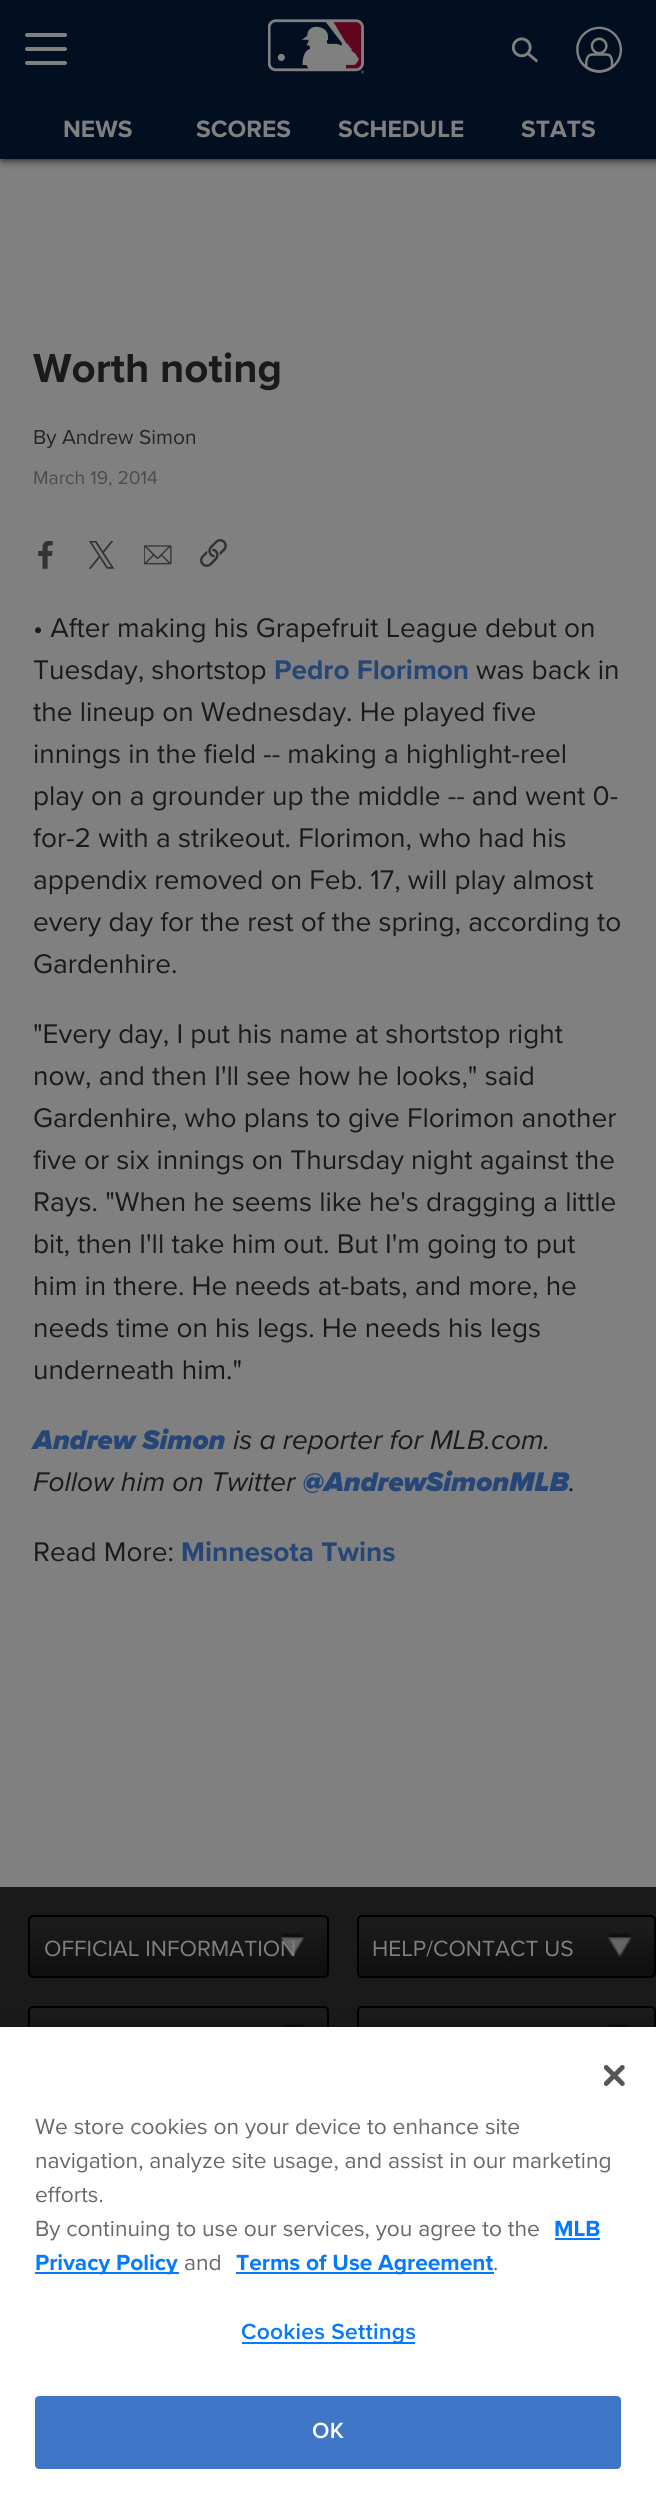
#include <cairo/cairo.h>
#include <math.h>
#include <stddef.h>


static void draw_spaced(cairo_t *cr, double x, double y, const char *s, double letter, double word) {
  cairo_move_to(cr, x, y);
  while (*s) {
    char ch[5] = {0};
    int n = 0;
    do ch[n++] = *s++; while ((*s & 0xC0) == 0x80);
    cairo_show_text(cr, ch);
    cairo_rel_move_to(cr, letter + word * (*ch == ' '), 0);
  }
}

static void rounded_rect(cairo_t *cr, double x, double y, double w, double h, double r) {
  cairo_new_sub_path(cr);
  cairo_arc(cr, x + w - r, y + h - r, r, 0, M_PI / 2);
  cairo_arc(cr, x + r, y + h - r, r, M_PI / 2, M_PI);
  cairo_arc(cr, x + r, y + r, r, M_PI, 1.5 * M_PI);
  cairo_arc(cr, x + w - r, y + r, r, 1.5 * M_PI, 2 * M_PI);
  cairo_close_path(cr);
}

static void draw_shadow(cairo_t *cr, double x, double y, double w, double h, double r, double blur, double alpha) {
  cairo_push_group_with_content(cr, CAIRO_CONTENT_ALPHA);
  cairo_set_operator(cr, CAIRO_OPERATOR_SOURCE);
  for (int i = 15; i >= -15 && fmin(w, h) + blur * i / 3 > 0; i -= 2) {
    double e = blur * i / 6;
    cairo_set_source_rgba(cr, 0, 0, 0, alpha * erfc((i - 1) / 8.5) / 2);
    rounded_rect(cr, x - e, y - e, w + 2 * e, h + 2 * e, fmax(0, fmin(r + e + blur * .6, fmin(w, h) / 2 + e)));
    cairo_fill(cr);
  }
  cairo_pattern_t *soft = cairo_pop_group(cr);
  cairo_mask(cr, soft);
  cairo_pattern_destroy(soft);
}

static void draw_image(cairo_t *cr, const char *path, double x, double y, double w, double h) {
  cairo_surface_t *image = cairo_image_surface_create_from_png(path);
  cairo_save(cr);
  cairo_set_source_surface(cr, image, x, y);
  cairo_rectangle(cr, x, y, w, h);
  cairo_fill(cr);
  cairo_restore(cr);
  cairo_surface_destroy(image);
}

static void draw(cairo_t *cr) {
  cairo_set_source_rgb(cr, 128 / 255.0, 128 / 255.0, 128 / 255.0);
  cairo_paint(cr);
  cairo_set_source_rgb(cr, 0, 0, 0);
  draw_shadow(cr, 2, 0, 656, 159, 0, 4.5, 1);
  cairo_set_source_rgb(cr, 2 / 255.0, 15 / 255.0, 33 / 255.0);
  cairo_rectangle(cr, 0, 0, 656, 159);
  cairo_fill(cr);
  cairo_set_source_rgb(cr, 128 / 255.0, 128 / 255.0, 128 / 255.0);
  rounded_rect(cr, 25, 33, 42, 4, 2);
  cairo_fill(cr);
  rounded_rect(cr, 25, 47, 42, 4, 2);
  cairo_fill(cr);
  rounded_rect(cr, 25, 61, 42, 4, 2);
  cairo_fill(cr);
  draw_image(cr, "images/1.png", 268, 19, 96, 55);
  draw_image(cr, "images/2.png", 512, 37, 26, 26);
  draw_image(cr, "images/3.png", 576, 26, 47, 49);
  draw_image(cr, "images/4.png", 38, 541, 15, 28);
  draw_image(cr, "images/5.png", 88, 541, 27, 28);
  draw_image(cr, "images/6.png", 144, 545, 28, 20);
  draw_image(cr, "images/7.png", 200, 539, 27, 28);
  cairo_set_source_rgb(cr, 26 / 255.0, 26 / 255.0, 26 / 255.0);
  cairo_rectangle(cr, 0, 1887, 656, 140);
  cairo_fill(cr);
  draw_image(cr, "images/8.png", 29, 1916, 299, 60);
  rounded_rect(cr, 29, 1916, 299, 61, 4);
  cairo_set_source_rgb(cr, 0, 0, 0);
  cairo_stroke(cr);
  draw_image(cr, "images/9.png", 358, 1916, 297, 60);
  rounded_rect(cr, 358, 1916, 297, 61, 4);
  cairo_stroke(cr);
  draw_image(cr, "images/10.png", 29, 2007, 299, 20);
  rounded_rect(cr, 29, 2007, 299, 61, 4);
  cairo_stroke(cr);
  draw_image(cr, "images/11.png", 358, 2007, 297, 20);
  rounded_rect(cr, 358, 2007, 297, 61, 4);
  cairo_stroke(cr);
  cairo_set_source_rgb(cr, 0, 0, 0);
  draw_shadow(cr, 0, 2027, 656, 470, 0, 16, 0.2);
  cairo_set_source_rgb(cr, 1, 1, 1);
  cairo_rectangle(cr, 0, 2027, 656, 470);
  cairo_fill(cr);
  draw_image(cr, "images/12.png", 604, 2065, 21, 21);
  cairo_set_source_rgb(cr, 5 / 255.0, 122 / 255.0, 1);
  cairo_rectangle(cr, 555, 2238, 45, 2);
  cairo_fill(cr);
  cairo_rectangle(cr, 35, 2272, 144, 2);
  cairo_fill(cr);
  cairo_rectangle(cr, 236, 2272, 258, 2);
  cairo_fill(cr);
  cairo_rectangle(cr, 242, 2342, 173, 2);
  cairo_fill(cr);
  cairo_set_source_rgb(cr, 64 / 255.0, 118 / 255.0, 199 / 255.0);
  rounded_rect(cr, 36, 2397, 584, 71, 3);
  cairo_fill_preserve(cr);
  cairo_stroke(cr);
  cairo_select_font_face(cr, "Proxima Nova", CAIRO_FONT_SLANT_NORMAL, CAIRO_FONT_WEIGHT_BOLD);
  cairo_set_font_size(cr, 24.5);
  cairo_set_source_rgb(cr, 128 / 255.0, 128 / 255.0, 128 / 255.0);
  cairo_move_to(cr, 63, 137);
  cairo_show_text(cr, "NEWS");
  cairo_move_to(cr, 196, 137);
  cairo_show_text(cr, "SCORES");
  cairo_move_to(cr, 338, 137);
  cairo_show_text(cr, "SCHEDULE");
  cairo_move_to(cr, 521, 137);
  cairo_show_text(cr, "STATS");
  cairo_select_font_face(cr, "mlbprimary", CAIRO_FONT_SLANT_NORMAL, CAIRO_FONT_WEIGHT_BOLD);
  cairo_set_font_size(cr, 42);
  cairo_set_source_rgb(cr, 26 / 255.0, 26 / 255.0, 26 / 255.0);
  cairo_move_to(cr, 33, 382);
  cairo_show_text(cr, "Worth noting");
  cairo_select_font_face(cr, "mlbprimary", CAIRO_FONT_SLANT_NORMAL, CAIRO_FONT_WEIGHT_NORMAL);
  cairo_set_font_size(cr, 21);
  cairo_set_source_rgb(cr, 37 / 255.0, 37 / 255.0, 37 / 255.0);
  cairo_move_to(cr, 33, 444);
  cairo_show_text(cr, "By Andrew Simon");
  cairo_set_font_size(cr, 19.25);
  cairo_set_source_rgb(cr, 77 / 255.0, 77 / 255.0, 77 / 255.0);
  cairo_move_to(cr, 33, 484);
  cairo_show_text(cr, "March 19, 2014");
  cairo_set_font_size(cr, 28);
  cairo_set_source_rgb(cr, 26 / 255.0, 26 / 255.0, 26 / 255.0);
  cairo_move_to(cr, 33, 637);
  cairo_show_text(cr, "• After making his Grapefruit League debut on");
  cairo_move_to(cr, 33, 679);
  cairo_show_text(cr, "Tuesday, shortstop");
  cairo_select_font_face(cr, "mlbprimary", CAIRO_FONT_SLANT_NORMAL, CAIRO_FONT_WEIGHT_BOLD);
  cairo_set_source_rgb(cr, 38 / 255.0, 70 / 255.0, 119 / 255.0);
  cairo_move_to(cr, 274, 679);
  cairo_show_text(cr, "Pedro Florimon");
  cairo_select_font_face(cr, "mlbprimary", CAIRO_FONT_SLANT_NORMAL, CAIRO_FONT_WEIGHT_NORMAL);
  cairo_set_source_rgb(cr, 26 / 255.0, 26 / 255.0, 26 / 255.0);
  cairo_move_to(cr, 476, 679);
  cairo_show_text(cr, "was back in");
  cairo_move_to(cr, 33, 721);
  cairo_show_text(cr, "the lineup on Wednesday. He played five");
  cairo_move_to(cr, 33, 763);
  cairo_show_text(cr, "innings in the field -- making a highlight-reel");
  cairo_move_to(cr, 33, 805);
  cairo_show_text(cr, "play on a grounder up the middle -- and went 0-");
  cairo_move_to(cr, 33, 847);
  cairo_show_text(cr, "for-2 with a strikeout. Florimon, who had his");
  cairo_move_to(cr, 33, 889);
  cairo_show_text(cr, "appendix removed on Feb. 17, will play almost");
  cairo_move_to(cr, 33, 931);
  cairo_show_text(cr, "every day for the rest of the spring, according to");
  cairo_move_to(cr, 33, 973);
  cairo_show_text(cr, "Gardenhire.");
  cairo_move_to(cr, 33, 1043);
  cairo_show_text(cr, "\"Every day, I put his name at shortstop right");
  cairo_move_to(cr, 33, 1085);
  cairo_show_text(cr, "now, and then I'll see how he looks,\" said");
  cairo_move_to(cr, 33, 1127);
  cairo_show_text(cr, "Gardenhire, who plans to give Florimon another");
  cairo_move_to(cr, 33, 1169);
  cairo_show_text(cr, "five or six innings on Thursday night against the");
  cairo_move_to(cr, 33, 1211);
  cairo_show_text(cr, "Rays. \"When he seems like he's dragging a little");
  cairo_move_to(cr, 33, 1253);
  cairo_show_text(cr, "bit, then I'll take him out. But I'm going to put");
  cairo_move_to(cr, 33, 1295);
  cairo_show_text(cr, "him in there. He needs at-bats, and more, he");
  cairo_move_to(cr, 33, 1337);
  cairo_show_text(cr, "needs time on his legs. He needs his legs");
  cairo_move_to(cr, 33, 1379);
  cairo_show_text(cr, "underneath him.\"");
  cairo_select_font_face(cr, "Proxima Nova Black", CAIRO_FONT_SLANT_ITALIC, CAIRO_FONT_WEIGHT_NORMAL);
  cairo_set_source_rgb(cr, 38 / 255.0, 70 / 255.0, 119 / 255.0);
  cairo_move_to(cr, 33, 1449);
  cairo_show_text(cr, "Andrew Simon");
  cairo_select_font_face(cr, "mlbprimary", CAIRO_FONT_SLANT_ITALIC, CAIRO_FONT_WEIGHT_NORMAL);
  cairo_set_source_rgb(cr, 26 / 255.0, 26 / 255.0, 26 / 255.0);
  cairo_move_to(cr, 233, 1449);
  cairo_show_text(cr, "is a reporter for MLB.com.");
  cairo_move_to(cr, 33, 1491);
  cairo_show_text(cr, "Follow him on Twitter");
  cairo_select_font_face(cr, "Proxima Nova Black", CAIRO_FONT_SLANT_ITALIC, CAIRO_FONT_WEIGHT_NORMAL);
  cairo_set_source_rgb(cr, 38 / 255.0, 70 / 255.0, 119 / 255.0);
  cairo_move_to(cr, 302, 1491);
  cairo_show_text(cr, "@AndrewSimonMLB");
  cairo_select_font_face(cr, "mlbprimary", CAIRO_FONT_SLANT_ITALIC, CAIRO_FONT_WEIGHT_NORMAL);
  cairo_set_source_rgb(cr, 26 / 255.0, 26 / 255.0, 26 / 255.0);
  cairo_move_to(cr, 569, 1491);
  cairo_show_text(cr, ".");
  cairo_select_font_face(cr, "mlbprimary", CAIRO_FONT_SLANT_NORMAL, CAIRO_FONT_WEIGHT_NORMAL);
  cairo_move_to(cr, 33, 1561);
  cairo_show_text(cr, "Read More:");
  cairo_select_font_face(cr, "mlbprimary", CAIRO_FONT_SLANT_NORMAL, CAIRO_FONT_WEIGHT_BOLD);
  cairo_set_source_rgb(cr, 38 / 255.0, 70 / 255.0, 119 / 255.0);
  cairo_move_to(cr, 181, 1561);
  cairo_show_text(cr, "Minnesota Twins");
  cairo_select_font_face(cr, "Proxima Nova", CAIRO_FONT_SLANT_NORMAL, CAIRO_FONT_WEIGHT_NORMAL);
  cairo_set_font_size(cr, 22.8);
  cairo_set_source_rgb(cr, 128 / 255.0, 128 / 255.0, 128 / 255.0);
  cairo_move_to(cr, 44, 1956);
  cairo_show_text(cr, "OFFICIAL INFORMATION");
  cairo_move_to(cr, 372, 1956);
  cairo_show_text(cr, "HELP/CONTACT US");
  cairo_select_font_face(cr, "mlbprimary", CAIRO_FONT_SLANT_NORMAL, CAIRO_FONT_WEIGHT_NORMAL);
  cairo_set_font_size(cr, 22.75);
  cairo_set_source_rgb(cr, 105 / 255.0, 105 / 255.0, 105 / 255.0);
  cairo_move_to(cr, 35, 2134);
  cairo_show_text(cr, "We store cookies on your device to enhance site");
  cairo_move_to(cr, 35, 2168);
  cairo_show_text(cr, "navigation, analyze site usage, and assist in our marketing");
  cairo_move_to(cr, 35, 2202);
  cairo_show_text(cr, "efforts.");
  cairo_move_to(cr, 35, 2236);
  cairo_show_text(cr, "By continuing to use our services, you agree to the");
  cairo_select_font_face(cr, "mlbprimary", CAIRO_FONT_SLANT_NORMAL, CAIRO_FONT_WEIGHT_BOLD);
  cairo_set_source_rgb(cr, 5 / 255.0, 122 / 255.0, 1);
  cairo_move_to(cr, 554, 2236);
  cairo_show_text(cr, "MLB");
  cairo_move_to(cr, 35, 2270);
  cairo_show_text(cr, "Privacy Policy");
  cairo_select_font_face(cr, "mlbprimary", CAIRO_FONT_SLANT_NORMAL, CAIRO_FONT_WEIGHT_NORMAL);
  cairo_set_source_rgb(cr, 105 / 255.0, 105 / 255.0, 105 / 255.0);
  cairo_move_to(cr, 184, 2270);
  cairo_show_text(cr, "and");
  cairo_select_font_face(cr, "mlbprimary", CAIRO_FONT_SLANT_NORMAL, CAIRO_FONT_WEIGHT_BOLD);
  cairo_set_source_rgb(cr, 5 / 255.0, 122 / 255.0, 1);
  cairo_move_to(cr, 236, 2270);
  cairo_show_text(cr, "Terms of Use Agreement");
  cairo_select_font_face(cr, "mlbprimary", CAIRO_FONT_SLANT_NORMAL, CAIRO_FONT_WEIGHT_NORMAL);
  cairo_set_source_rgb(cr, 105 / 255.0, 105 / 255.0, 105 / 255.0);
  cairo_move_to(cr, 493, 2270);
  cairo_show_text(cr, ".");
  cairo_select_font_face(cr, "Proxima Nova SemiBold", CAIRO_FONT_SLANT_NORMAL, CAIRO_FONT_WEIGHT_NORMAL);
  cairo_set_source_rgb(cr, 5 / 255.0, 122 / 255.0, 1);
  draw_spaced(cr, 241, 2339, "Cookies Settings", 0.25, 0);
  cairo_set_source_rgb(cr, 1, 1, 1);
  draw_spaced(cr, 312, 2438, "OK", 0.25, 0);
}

int main(void) {
  cairo_surface_t *surface = cairo_image_surface_create(CAIRO_FORMAT_RGB24, 656, 2497);
  cairo_t *cr = cairo_create(surface);
  cairo_font_options_t *options = cairo_font_options_create();
  cairo_font_options_set_hint_metrics(options, CAIRO_HINT_METRICS_OFF);
  cairo_font_options_set_hint_style(options, CAIRO_HINT_STYLE_NONE);
  cairo_set_font_options(cr, options);
  cairo_set_miter_limit(cr, 4);
  draw(cr);
  cairo_surface_write_to_png(surface, "out.png");
  cairo_font_options_destroy(options);
  cairo_destroy(cr);
  cairo_surface_destroy(surface);
  return 0;
}
